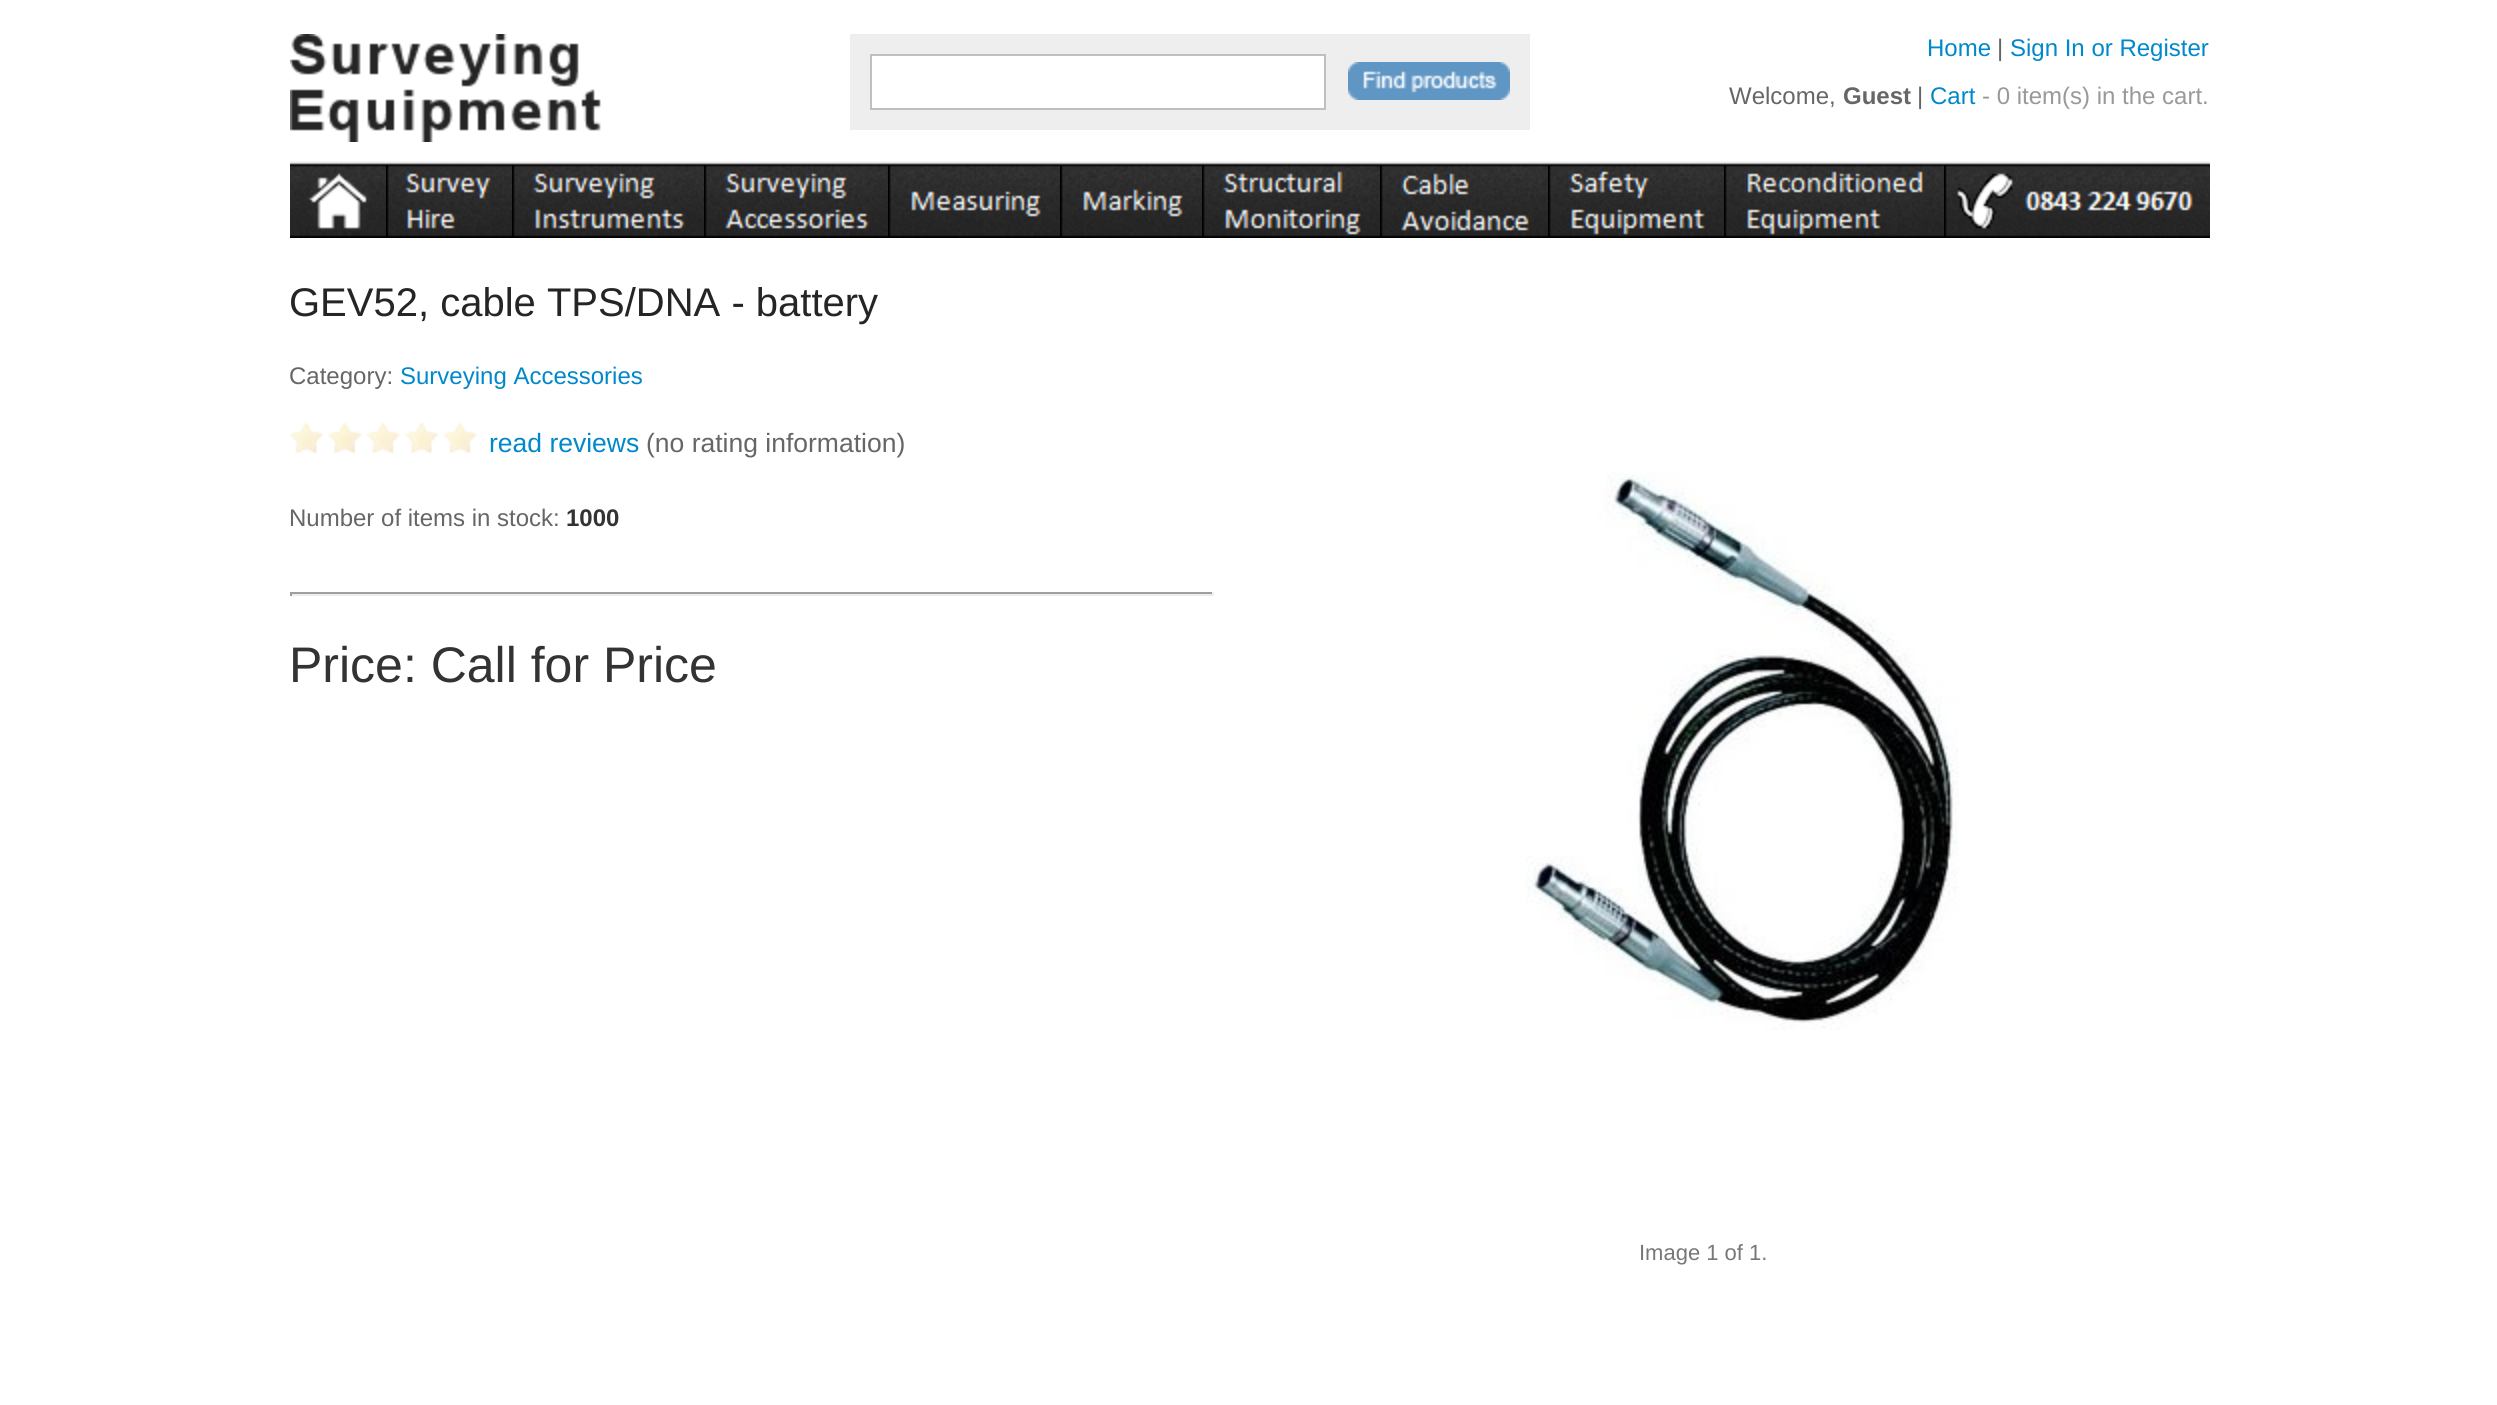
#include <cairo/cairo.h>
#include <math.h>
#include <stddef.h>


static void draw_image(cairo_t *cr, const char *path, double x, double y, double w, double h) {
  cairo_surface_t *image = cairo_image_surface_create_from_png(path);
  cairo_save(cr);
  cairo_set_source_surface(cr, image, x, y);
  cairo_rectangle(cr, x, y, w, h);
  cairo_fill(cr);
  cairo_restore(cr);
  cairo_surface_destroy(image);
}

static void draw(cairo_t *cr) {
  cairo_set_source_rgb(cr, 1, 1, 1);
  cairo_paint(cr);
  draw_image(cr, "images/1.png", 290, 34, 311, 108);
  cairo_set_source_rgb(cr, 238 / 255.0, 238 / 255.0, 238 / 255.0);
  cairo_rectangle(cr, 850, 34, 680, 96);
  cairo_fill(cr);
  cairo_set_source_rgb(cr, 1, 1, 1);
  cairo_rectangle(cr, 871, 55, 454, 54);
  cairo_fill_preserve(cr);
  cairo_set_source_rgb(cr, 191 / 255.0, 191 / 255.0, 191 / 255.0);
  cairo_stroke(cr);
  draw_image(cr, "images/2.png", 1348, 62, 162, 38);
  draw_image(cr, "images/3.png", 290, 161, 96, 77);
  draw_image(cr, "images/4.png", 386, 161, 126, 77);
  draw_image(cr, "images/5.png", 512, 161, 192, 77);
  draw_image(cr, "images/6.png", 704, 161, 184, 77);
  draw_image(cr, "images/7.png", 888, 161, 172, 77);
  draw_image(cr, "images/8.png", 1060, 161, 142, 77);
  draw_image(cr, "images/9.png", 1202, 161, 178, 77);
  draw_image(cr, "images/10.png", 1380, 161, 168, 77);
  draw_image(cr, "images/11.png", 1548, 161, 176, 77);
  draw_image(cr, "images/12.png", 1724, 161, 220, 77);
  draw_image(cr, "images/13.png", 1944, 161, 266, 77);
  draw_image(cr, "images/14.png", 290, 422, 187, 32);
  cairo_set_source_rgb(cr, 159 / 255.0, 159 / 255.0, 159 / 255.0);
  cairo_rectangle(cr, 290, 592, 924, 2);
  cairo_fill(cr);
  cairo_set_source_rgb(cr, 238 / 255.0, 238 / 255.0, 238 / 255.0);
  cairo_rectangle(cr, 1212, 592, 2, 4);
  cairo_fill(cr);
  cairo_rectangle(cr, 290, 594, 924, 2);
  cairo_fill(cr);
  cairo_set_source_rgb(cr, 159 / 255.0, 159 / 255.0, 159 / 255.0);
  cairo_rectangle(cr, 290, 592, 2, 4);
  cairo_fill(cr);
  draw_image(cr, "images/15.png", 1525, 472, 434, 558);
  cairo_select_font_face(cr, "Liberation Sans", CAIRO_FONT_SLANT_NORMAL, CAIRO_FONT_WEIGHT_NORMAL);
  cairo_set_font_size(cr, 24);
  cairo_set_source_rgb(cr, 0, 136 / 255.0, 204 / 255.0);
  cairo_move_to(cr, 1927, 56);
  cairo_show_text(cr, "Home");
  cairo_set_source_rgb(cr, 102 / 255.0, 102 / 255.0, 102 / 255.0);
  cairo_move_to(cr, 1997, 56);
  cairo_show_text(cr, "|");
  cairo_set_source_rgb(cr, 0, 136 / 255.0, 204 / 255.0);
  cairo_move_to(cr, 2010, 56);
  cairo_show_text(cr, "Sign In or Register");
  cairo_set_source_rgb(cr, 102 / 255.0, 102 / 255.0, 102 / 255.0);
  cairo_move_to(cr, 1729, 104);
  cairo_show_text(cr, "Welcome,");
  cairo_select_font_face(cr, "Liberation Sans", CAIRO_FONT_SLANT_NORMAL, CAIRO_FONT_WEIGHT_BOLD);
  cairo_move_to(cr, 1843, 104);
  cairo_show_text(cr, "Guest");
  cairo_select_font_face(cr, "Liberation Sans", CAIRO_FONT_SLANT_NORMAL, CAIRO_FONT_WEIGHT_NORMAL);
  cairo_move_to(cr, 1917, 104);
  cairo_show_text(cr, "|");
  cairo_set_source_rgb(cr, 0, 136 / 255.0, 204 / 255.0);
  cairo_move_to(cr, 1930, 104);
  cairo_show_text(cr, "Cart");
  cairo_set_source_rgb(cr, 153 / 255.0, 153 / 255.0, 153 / 255.0);
  cairo_move_to(cr, 1982, 104);
  cairo_show_text(cr, "- 0 item(s) in the cart.");
  cairo_set_font_size(cr, 40);
  cairo_set_source_rgb(cr, 37 / 255.0, 37 / 255.0, 37 / 255.0);
  cairo_move_to(cr, 289, 316);
  cairo_show_text(cr, "GEV52, cable TPS/DNA - battery");
  cairo_set_font_size(cr, 24);
  cairo_set_source_rgb(cr, 102 / 255.0, 102 / 255.0, 102 / 255.0);
  cairo_move_to(cr, 289, 384);
  cairo_show_text(cr, "Category:");
  cairo_set_source_rgb(cr, 0, 136 / 255.0, 204 / 255.0);
  cairo_move_to(cr, 400, 384);
  cairo_show_text(cr, "Surveying Accessories");
  cairo_set_font_size(cr, 26.5);
  cairo_move_to(cr, 489, 452);
  cairo_show_text(cr, "read reviews");
  cairo_set_source_rgb(cr, 102 / 255.0, 102 / 255.0, 102 / 255.0);
  cairo_move_to(cr, 646, 452);
  cairo_show_text(cr, "(no rating information)");
  cairo_set_font_size(cr, 24);
  cairo_move_to(cr, 289, 526);
  cairo_show_text(cr, "Number of items in stock:");
  cairo_select_font_face(cr, "Liberation Sans", CAIRO_FONT_SLANT_NORMAL, CAIRO_FONT_WEIGHT_BOLD);
  cairo_set_source_rgb(cr, 51 / 255.0, 51 / 255.0, 51 / 255.0);
  cairo_move_to(cr, 566, 526);
  cairo_show_text(cr, "1000");
  cairo_select_font_face(cr, "Liberation Sans", CAIRO_FONT_SLANT_NORMAL, CAIRO_FONT_WEIGHT_NORMAL);
  cairo_set_font_size(cr, 50);
  cairo_move_to(cr, 289, 682);
  cairo_show_text(cr, "Price: Call for Price");
  cairo_set_font_size(cr, 22);
  cairo_set_source_rgb(cr, 119 / 255.0, 119 / 255.0, 119 / 255.0);
  cairo_move_to(cr, 1639, 1260);
  cairo_show_text(cr, "Image 1 of 1.");
}

int main(void) {
  cairo_surface_t *surface = cairo_image_surface_create(CAIRO_FORMAT_RGB24, 2497, 1405);
  cairo_t *cr = cairo_create(surface);
  cairo_font_options_t *options = cairo_font_options_create();
  cairo_font_options_set_hint_metrics(options, CAIRO_HINT_METRICS_OFF);
  cairo_font_options_set_hint_style(options, CAIRO_HINT_STYLE_NONE);
  cairo_set_font_options(cr, options);
  cairo_set_miter_limit(cr, 4);
  draw(cr);
  cairo_surface_write_to_png(surface, "out.png");
  cairo_font_options_destroy(options);
  cairo_destroy(cr);
  cairo_surface_destroy(surface);
  return 0;
}
